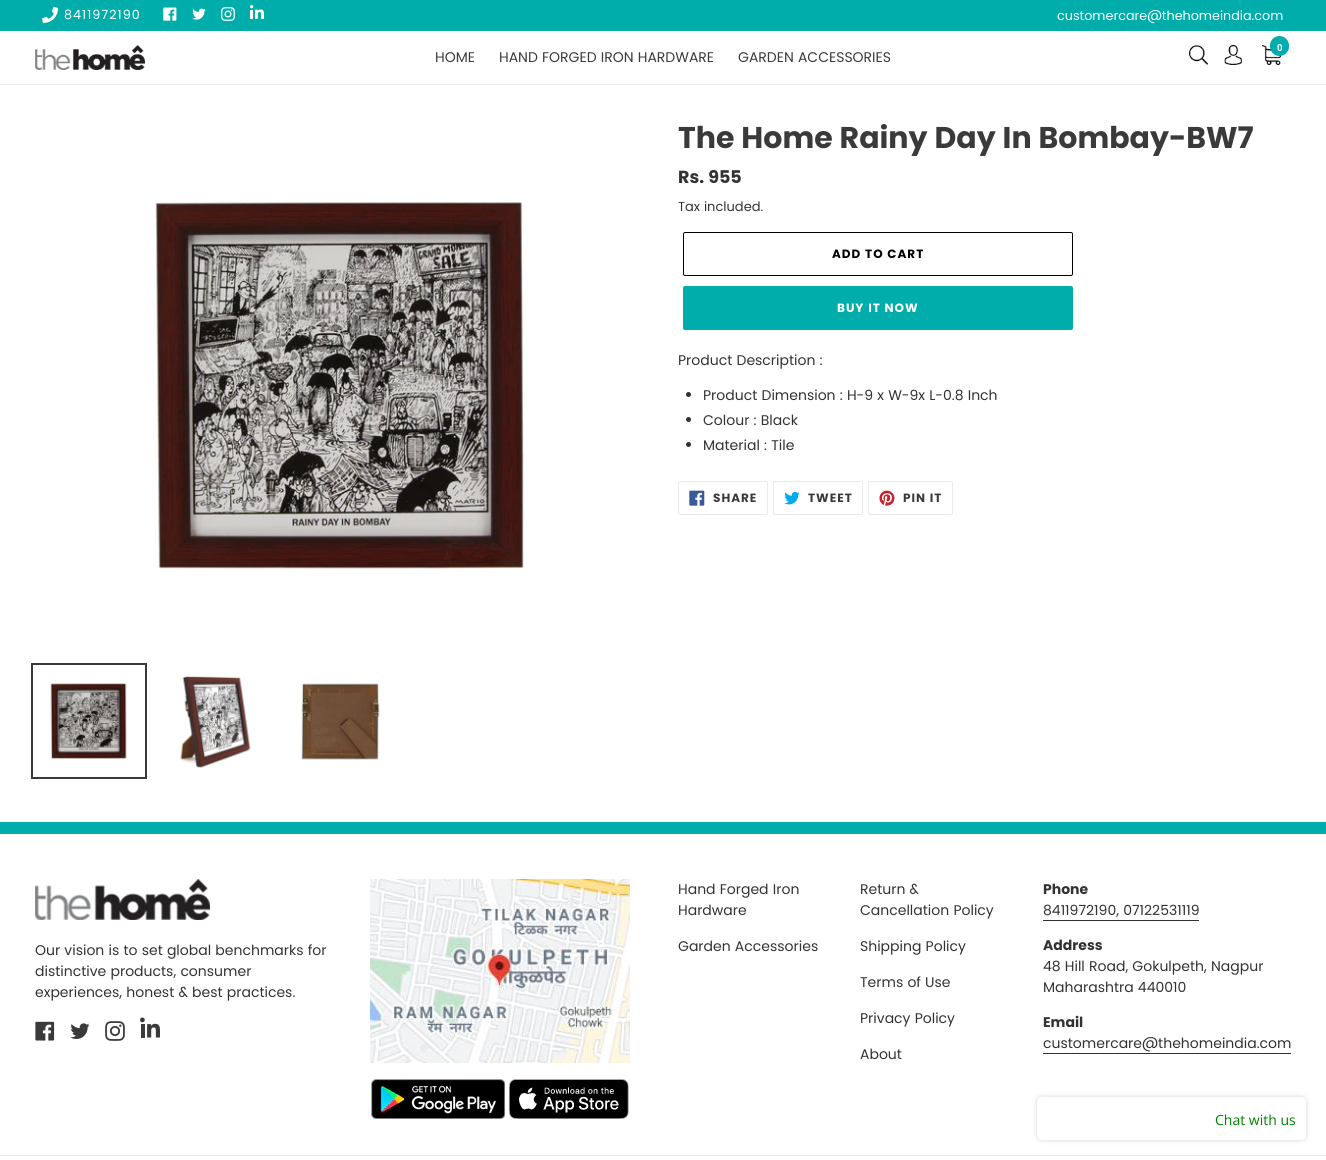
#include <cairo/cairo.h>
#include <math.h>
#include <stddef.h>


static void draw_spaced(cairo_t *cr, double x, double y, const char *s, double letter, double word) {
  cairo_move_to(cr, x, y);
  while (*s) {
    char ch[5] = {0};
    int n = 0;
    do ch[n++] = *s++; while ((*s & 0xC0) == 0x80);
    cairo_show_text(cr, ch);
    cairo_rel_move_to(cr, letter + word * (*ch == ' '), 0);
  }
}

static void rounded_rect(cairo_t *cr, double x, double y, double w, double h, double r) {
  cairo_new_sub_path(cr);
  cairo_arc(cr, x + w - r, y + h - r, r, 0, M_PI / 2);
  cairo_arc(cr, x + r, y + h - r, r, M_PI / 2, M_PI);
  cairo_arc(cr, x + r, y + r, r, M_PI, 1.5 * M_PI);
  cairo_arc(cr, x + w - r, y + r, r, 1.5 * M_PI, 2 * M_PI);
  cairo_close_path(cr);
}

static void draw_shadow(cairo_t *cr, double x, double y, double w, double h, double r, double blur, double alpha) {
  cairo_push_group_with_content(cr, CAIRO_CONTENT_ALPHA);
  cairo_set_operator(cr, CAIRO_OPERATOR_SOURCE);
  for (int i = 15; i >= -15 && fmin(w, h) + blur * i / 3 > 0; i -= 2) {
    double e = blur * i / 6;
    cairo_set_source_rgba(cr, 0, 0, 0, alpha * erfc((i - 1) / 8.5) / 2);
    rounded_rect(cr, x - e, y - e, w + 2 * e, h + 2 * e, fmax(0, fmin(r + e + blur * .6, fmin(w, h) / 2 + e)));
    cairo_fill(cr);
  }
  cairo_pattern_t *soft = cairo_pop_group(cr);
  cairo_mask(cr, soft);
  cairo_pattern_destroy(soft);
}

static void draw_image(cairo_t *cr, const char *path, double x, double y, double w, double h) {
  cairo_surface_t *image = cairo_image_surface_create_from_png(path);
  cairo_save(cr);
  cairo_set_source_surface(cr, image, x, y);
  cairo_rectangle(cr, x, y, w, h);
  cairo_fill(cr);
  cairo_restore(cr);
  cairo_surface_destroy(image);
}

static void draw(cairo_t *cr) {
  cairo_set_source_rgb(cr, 1, 1, 1);
  cairo_paint(cr);
  cairo_set_source_rgb(cr, 0, 173 / 255.0, 171 / 255.0);
  cairo_rectangle(cr, 0, 0, 1326, 31);
  cairo_fill(cr);
  draw_image(cr, "images/1.png", 42, 7, 16, 16);
  draw_image(cr, "images/2.png", 163, 7, 14, 14);
  draw_image(cr, "images/3.png", 192, 8, 14, 12);
  draw_image(cr, "images/4.png", 221, 7, 14, 14);
  draw_image(cr, "images/5.png", 250, 5, 14, 14);
  cairo_set_source_rgb(cr, 235 / 255.0, 235 / 255.0, 235 / 255.0);
  cairo_rectangle(cr, 0, 84, 1326, 1);
  cairo_fill(cr);
  draw_image(cr, "images/6.png", 35, 45, 110, 25);
  draw_image(cr, "images/7.png", 1189, 45, 19, 20);
  draw_image(cr, "images/8.png", 1224, 45, 18, 20);
  draw_image(cr, "images/9.png", 1262, 45, 19, 20);
  cairo_set_source_rgb(cr, 0, 173 / 255.0, 171 / 255.0);
  rounded_rect(cr, 1270, 36, 19, 20, 9.5);
  cairo_fill(cr);
  draw_image(cr, "images/10.png", 155, 202, 370, 367);
  cairo_rectangle(cr, 32, 664, 114, 114);
  cairo_set_source_rgb(cr, 58 / 255.0, 58 / 255.0, 58 / 255.0);
  cairo_stroke(cr);
  draw_image(cr, "images/11.png", 50, 683, 77, 76);
  draw_image(cr, "images/12.png", 180, 675, 71, 93);
  draw_image(cr, "images/13.png", 301, 683, 79, 77);
  rounded_rect(cr, 683.5, 232.5, 389, 43, 1.5);
  cairo_set_source_rgb(cr, 0, 0, 0);
  cairo_set_line_width(cr, 1);
  cairo_stroke(cr);
  cairo_set_source_rgb(cr, 0, 173 / 255.0, 171 / 255.0);
  rounded_rect(cr, 683, 286, 390, 44, 2);
  cairo_fill(cr);
  cairo_set_source_rgb(cr, 51 / 255.0, 50 / 255.0, 50 / 255.0);
  cairo_arc(cr, 688.5, 394.5, 2.5, 0, 2 * M_PI);
  cairo_fill(cr);
  cairo_arc(cr, 688.5, 419.5, 2.5, 0, 2 * M_PI);
  cairo_fill(cr);
  cairo_arc(cr, 688.5, 444.5, 2.5, 0, 2 * M_PI);
  cairo_fill(cr);
  rounded_rect(cr, 678.5, 481.5, 89, 33, 1.5);
  cairo_set_source_rgb(cr, 235 / 255.0, 235 / 255.0, 235 / 255.0);
  cairo_stroke(cr);
  draw_image(cr, "images/14.png", 689, 490, 16, 16);
  rounded_rect(cr, 773.5, 481.5, 89, 33, 1.5);
  cairo_stroke(cr);
  draw_image(cr, "images/15.png", 784, 491, 16, 14);
  rounded_rect(cr, 868.5, 481.5, 84, 33, 1.5);
  cairo_stroke(cr);
  draw_image(cr, "images/16.png", 879, 490, 16, 16);
  cairo_set_source_rgb(cr, 0, 173 / 255.0, 171 / 255.0);
  cairo_rectangle(cr, 0, 822, 1326, 12);
  cairo_fill(cr);
  draw_image(cr, "images/17.png", 35, 879, 175, 41);
  draw_image(cr, "images/18.png", 35, 1021, 20, 20);
  draw_image(cr, "images/19.png", 70, 1023, 20, 16);
  draw_image(cr, "images/20.png", 105, 1021, 20, 20);
  draw_image(cr, "images/21.png", 140, 1017, 20, 21);
  draw_image(cr, "images/22.png", 370, 879, 260, 184);
  draw_image(cr, "images/23.png", 371, 1079, 134, 40);
  draw_image(cr, "images/24.png", 509, 1079, 120, 40);
  cairo_set_source_rgb(cr, 51 / 255.0, 50 / 255.0, 50 / 255.0);
  cairo_rectangle(cr, 1043, 920, 156, 1);
  cairo_fill(cr);
  cairo_rectangle(cr, 1043, 1053, 248, 1);
  cairo_fill(cr);
  cairo_set_source_rgb(cr, 230 / 255.0, 230 / 255.0, 230 / 255.0);
  cairo_rectangle(cr, 0, 1155, 1326, 1);
  cairo_fill(cr);
  cairo_set_source_rgb(cr, 211 / 255.0, 211 / 255.0, 211 / 255.0);
  draw_shadow(cr, 1037, 1097, 269, 43, 5, 2.5, 1);
  cairo_set_source_rgb(cr, 1, 1, 1);
  rounded_rect(cr, 1037, 1097, 269, 43, 5);
  cairo_fill(cr);
  cairo_select_font_face(cr, "Poppins", CAIRO_FONT_SLANT_NORMAL, CAIRO_FONT_WEIGHT_NORMAL);
  cairo_set_font_size(cr, 12.75);
  draw_spaced(cr, 64, 19, "8411972190", 1, 0);
  cairo_move_to(cr, 1057, 20);
  cairo_show_text(cr, "customercare@thehomeindia.com");
  cairo_set_font_size(cr, 14);
  cairo_set_source_rgb(cr, 58 / 255.0, 58 / 255.0, 58 / 255.0);
  cairo_move_to(cr, 435, 62);
  cairo_show_text(cr, "HOME");
  cairo_move_to(cr, 499, 62);
  cairo_show_text(cr, "HAND FORGED IRON HARDWARE");
  cairo_move_to(cr, 738, 62);
  cairo_show_text(cr, "GARDEN ACCESSORIES");
  cairo_select_font_face(cr, "Liberation Sans", CAIRO_FONT_SLANT_NORMAL, CAIRO_FONT_WEIGHT_BOLD);
  cairo_set_font_size(cr, 10);
  cairo_set_source_rgb(cr, 1, 1, 1);
  cairo_move_to(cr, 1277, 51);
  cairo_show_text(cr, "0");
  cairo_select_font_face(cr, "Poppins", CAIRO_FONT_SLANT_NORMAL, CAIRO_FONT_WEIGHT_BOLD);
  cairo_set_font_size(cr, 30);
  cairo_set_source_rgb(cr, 58 / 255.0, 58 / 255.0, 58 / 255.0);
  cairo_move_to(cr, 678, 148);
  cairo_show_text(cr, "The Home Rainy Day In Bombay-BW7");
  cairo_set_font_size(cr, 17.5);
  cairo_set_source_rgb(cr, 51 / 255.0, 50 / 255.0, 50 / 255.0);
  cairo_move_to(cr, 678, 183);
  cairo_show_text(cr, "Rs. 955");
  cairo_select_font_face(cr, "Poppins", CAIRO_FONT_SLANT_NORMAL, CAIRO_FONT_WEIGHT_NORMAL);
  cairo_set_font_size(cr, 13);
  cairo_move_to(cr, 678, 211);
  cairo_show_text(cr, "Tax included.");
  cairo_select_font_face(cr, "Poppins", CAIRO_FONT_SLANT_NORMAL, CAIRO_FONT_WEIGHT_BOLD);
  cairo_set_font_size(cr, 12);
  cairo_set_source_rgb(cr, 0, 0, 0);
  draw_spaced(cr, 832, 258, "ADD TO CART", 1, 0);
  cairo_set_source_rgb(cr, 1, 1, 1);
  draw_spaced(cr, 837, 312, "BUY IT NOW", 1, 0);
  cairo_select_font_face(cr, "Poppins", CAIRO_FONT_SLANT_NORMAL, CAIRO_FONT_WEIGHT_NORMAL);
  cairo_set_font_size(cr, 14);
  cairo_set_source_rgb(cr, 51 / 255.0, 50 / 255.0, 50 / 255.0);
  cairo_move_to(cr, 678, 365);
  cairo_show_text(cr, "Product Description :");
  cairo_move_to(cr, 703, 400);
  cairo_show_text(cr, "Product Dimension : H-9 x W-9x L-0.8 Inch");
  cairo_move_to(cr, 703, 425);
  cairo_show_text(cr, "Colour : Black");
  cairo_move_to(cr, 703, 450);
  cairo_show_text(cr, "Material : Tile");
  cairo_select_font_face(cr, "Poppins", CAIRO_FONT_SLANT_NORMAL, CAIRO_FONT_WEIGHT_BOLD);
  cairo_set_font_size(cr, 12);
  cairo_set_source_rgb(cr, 58 / 255.0, 58 / 255.0, 58 / 255.0);
  draw_spaced(cr, 713, 502, "SHARE", 1, 0);
  draw_spaced(cr, 808, 502, "TWEET", 1, 0);
  draw_spaced(cr, 903, 502, "PIN IT", 1, 0);
  cairo_select_font_face(cr, "Poppins", CAIRO_FONT_SLANT_NORMAL, CAIRO_FONT_WEIGHT_NORMAL);
  cairo_set_font_size(cr, 14);
  cairo_set_source_rgb(cr, 51 / 255.0, 50 / 255.0, 50 / 255.0);
  cairo_move_to(cr, 35, 955);
  cairo_show_text(cr, "Our vision is to set global benchmarks for");
  cairo_move_to(cr, 35, 976);
  cairo_show_text(cr, "distinctive products, consumer");
  cairo_move_to(cr, 35, 997);
  cairo_show_text(cr, "experiences, honest & best practices.");
  cairo_move_to(cr, 678, 894);
  cairo_show_text(cr, "Hand Forged Iron");
  cairo_move_to(cr, 678, 915);
  cairo_show_text(cr, "Hardware");
  cairo_move_to(cr, 678, 951);
  cairo_show_text(cr, "Garden Accessories");
  cairo_move_to(cr, 860, 894);
  cairo_show_text(cr, "Return &");
  cairo_move_to(cr, 860, 915);
  cairo_show_text(cr, "Cancellation Policy");
  cairo_move_to(cr, 860, 951);
  cairo_show_text(cr, "Shipping Policy");
  cairo_move_to(cr, 860, 987);
  cairo_show_text(cr, "Terms of Use");
  cairo_move_to(cr, 860, 1023);
  cairo_show_text(cr, "Privacy Policy");
  cairo_move_to(cr, 860, 1059);
  cairo_show_text(cr, "About");
  cairo_select_font_face(cr, "Poppins", CAIRO_FONT_SLANT_NORMAL, CAIRO_FONT_WEIGHT_BOLD);
  cairo_move_to(cr, 1043, 894);
  cairo_show_text(cr, "Phone");
  cairo_select_font_face(cr, "Poppins", CAIRO_FONT_SLANT_NORMAL, CAIRO_FONT_WEIGHT_NORMAL);
  cairo_move_to(cr, 1043, 915);
  cairo_show_text(cr, "8411972190, 07122531119");
  cairo_select_font_face(cr, "Poppins", CAIRO_FONT_SLANT_NORMAL, CAIRO_FONT_WEIGHT_BOLD);
  cairo_move_to(cr, 1043, 950);
  cairo_show_text(cr, "Address");
  cairo_select_font_face(cr, "Poppins", CAIRO_FONT_SLANT_NORMAL, CAIRO_FONT_WEIGHT_NORMAL);
  cairo_move_to(cr, 1043, 971);
  cairo_show_text(cr, "48 Hill Road, Gokulpeth, Nagpur");
  cairo_move_to(cr, 1043, 992);
  cairo_show_text(cr, "Maharashtra 440010");
  cairo_select_font_face(cr, "Poppins", CAIRO_FONT_SLANT_NORMAL, CAIRO_FONT_WEIGHT_BOLD);
  cairo_move_to(cr, 1043, 1027);
  cairo_show_text(cr, "Email");
  cairo_select_font_face(cr, "Poppins", CAIRO_FONT_SLANT_NORMAL, CAIRO_FONT_WEIGHT_NORMAL);
  cairo_move_to(cr, 1043, 1048);
  cairo_show_text(cr, "customercare@thehomeindia.com");
  cairo_select_font_face(cr, "Open Sans", CAIRO_FONT_SLANT_NORMAL, CAIRO_FONT_WEIGHT_NORMAL);
  cairo_set_source_rgb(cr, 0, 128 / 255.0, 0);
  cairo_move_to(cr, 1215, 1125);
  cairo_show_text(cr, "Chat with us");
}

int main(void) {
  cairo_surface_t *surface = cairo_image_surface_create(CAIRO_FORMAT_RGB24, 1326, 1160);
  cairo_t *cr = cairo_create(surface);
  cairo_font_options_t *options = cairo_font_options_create();
  cairo_font_options_set_hint_metrics(options, CAIRO_HINT_METRICS_OFF);
  cairo_font_options_set_hint_style(options, CAIRO_HINT_STYLE_NONE);
  cairo_set_font_options(cr, options);
  cairo_set_miter_limit(cr, 4);
  draw(cr);
  cairo_surface_write_to_png(surface, "out.png");
  cairo_font_options_destroy(options);
  cairo_destroy(cr);
  cairo_surface_destroy(surface);
  return 0;
}
